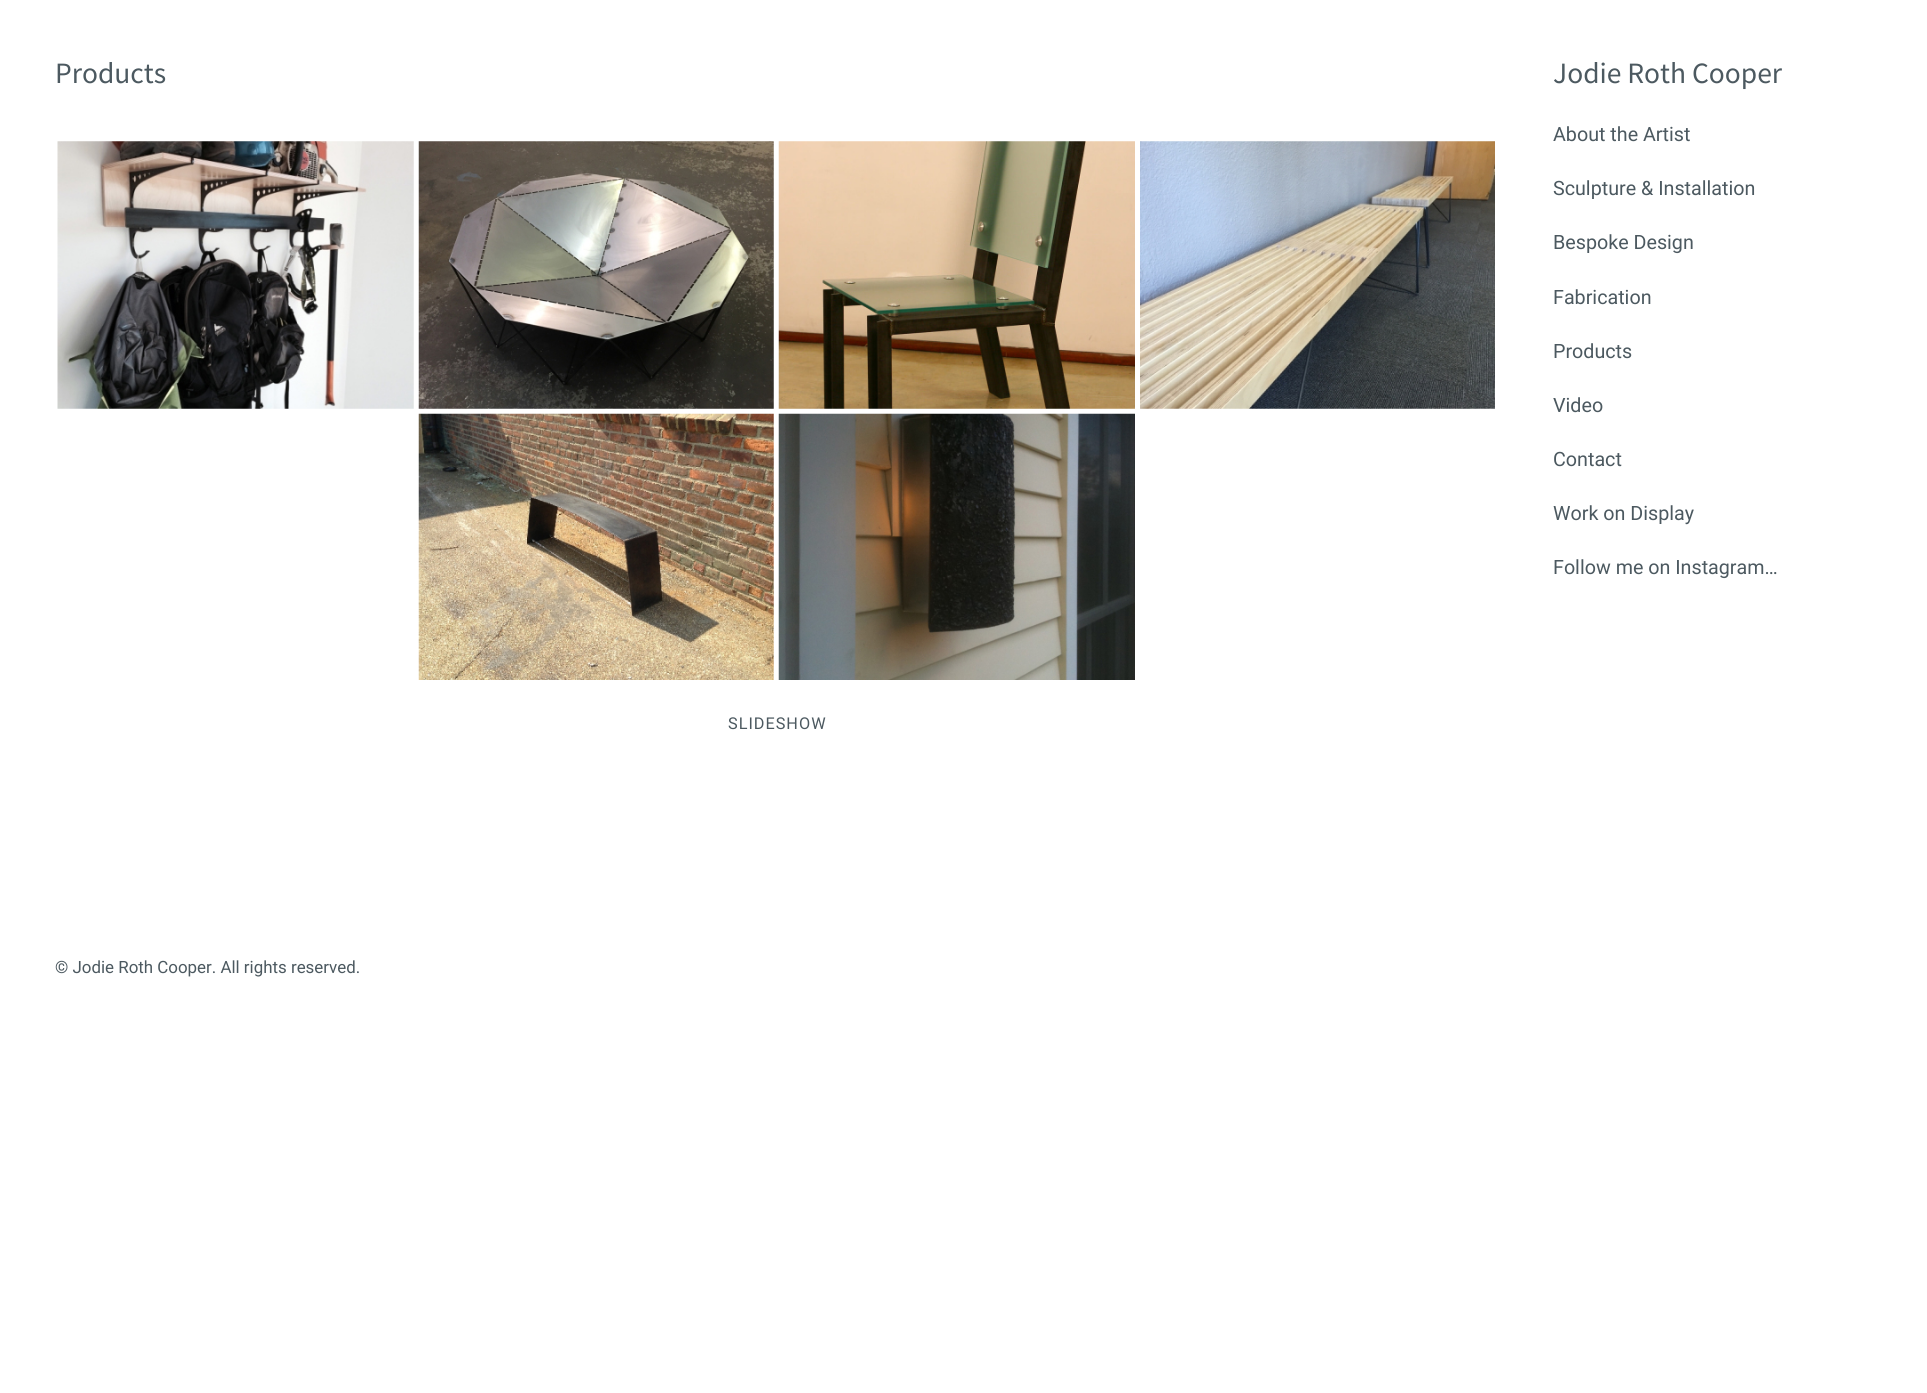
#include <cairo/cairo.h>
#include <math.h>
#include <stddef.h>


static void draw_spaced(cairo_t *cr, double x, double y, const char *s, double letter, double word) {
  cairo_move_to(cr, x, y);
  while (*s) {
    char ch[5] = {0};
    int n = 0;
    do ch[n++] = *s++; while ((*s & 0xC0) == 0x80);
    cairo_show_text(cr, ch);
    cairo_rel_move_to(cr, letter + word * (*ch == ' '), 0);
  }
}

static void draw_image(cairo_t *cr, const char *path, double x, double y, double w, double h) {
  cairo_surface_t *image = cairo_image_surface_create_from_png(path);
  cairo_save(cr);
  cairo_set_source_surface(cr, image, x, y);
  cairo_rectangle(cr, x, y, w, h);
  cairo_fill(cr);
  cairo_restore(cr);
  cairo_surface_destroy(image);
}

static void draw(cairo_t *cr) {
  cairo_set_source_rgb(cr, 1, 1, 1);
  cairo_paint(cr);
  draw_image(cr, "images/1.png", 57, 141, 357, 268);
  draw_image(cr, "images/2.png", 418, 141, 356, 268);
  draw_image(cr, "images/3.png", 778, 141, 357, 268);
  draw_image(cr, "images/4.png", 1140, 141, 355, 268);
  draw_image(cr, "images/5.png", 418, 413, 356, 267);
  draw_image(cr, "images/6.png", 778, 413, 357, 267);
  cairo_select_font_face(cr, "Source Sans Pro", CAIRO_FONT_SLANT_NORMAL, CAIRO_FONT_WEIGHT_NORMAL);
  cairo_set_font_size(cr, 29.5);
  cairo_set_source_rgb(cr, 76 / 255.0, 89 / 255.0, 96 / 255.0);
  cairo_move_to(cr, 55, 83);
  cairo_show_text(cr, "Products");
  cairo_select_font_face(cr, "Roboto", CAIRO_FONT_SLANT_NORMAL, CAIRO_FONT_WEIGHT_NORMAL);
  cairo_set_font_size(cr, 16.25);
  draw_spaced(cr, 728, 729, "SLIDESHOW", 1, 0);
  cairo_set_font_size(cr, 16.9);
  cairo_move_to(cr, 55, 973);
  cairo_show_text(cr, "© Jodie Roth Cooper. All rights reserved.");
  cairo_select_font_face(cr, "Source Sans Pro", CAIRO_FONT_SLANT_NORMAL, CAIRO_FONT_WEIGHT_NORMAL);
  cairo_set_font_size(cr, 29.5);
  cairo_move_to(cr, 1553, 83);
  cairo_show_text(cr, "Jodie Roth Cooper");
  cairo_select_font_face(cr, "Roboto", CAIRO_FONT_SLANT_NORMAL, CAIRO_FONT_WEIGHT_NORMAL);
  cairo_set_font_size(cr, 19.7);
  cairo_move_to(cr, 1553, 141);
  cairo_show_text(cr, "About the Artist");
  cairo_move_to(cr, 1553, 195);
  cairo_show_text(cr, "Sculpture & Installation");
  cairo_move_to(cr, 1553, 249);
  cairo_show_text(cr, "Bespoke Design");
  cairo_move_to(cr, 1553, 304);
  cairo_show_text(cr, "Fabrication");
  cairo_move_to(cr, 1553, 358);
  cairo_show_text(cr, "Products");
  cairo_move_to(cr, 1553, 412);
  cairo_show_text(cr, "Video");
  cairo_move_to(cr, 1553, 466);
  cairo_show_text(cr, "Contact");
  cairo_move_to(cr, 1553, 520);
  cairo_show_text(cr, "Work on Display");
  cairo_move_to(cr, 1553, 574);
  cairo_show_text(cr, "Follow me on Instagram…");
}

int main(void) {
  cairo_surface_t *surface = cairo_image_surface_create(CAIRO_FORMAT_RGB24, 1927, 1393);
  cairo_t *cr = cairo_create(surface);
  cairo_font_options_t *options = cairo_font_options_create();
  cairo_font_options_set_hint_metrics(options, CAIRO_HINT_METRICS_OFF);
  cairo_font_options_set_hint_style(options, CAIRO_HINT_STYLE_NONE);
  cairo_set_font_options(cr, options);
  cairo_set_miter_limit(cr, 4);
  draw(cr);
  cairo_surface_write_to_png(surface, "out.png");
  cairo_font_options_destroy(options);
  cairo_destroy(cr);
  cairo_surface_destroy(surface);
  return 0;
}
